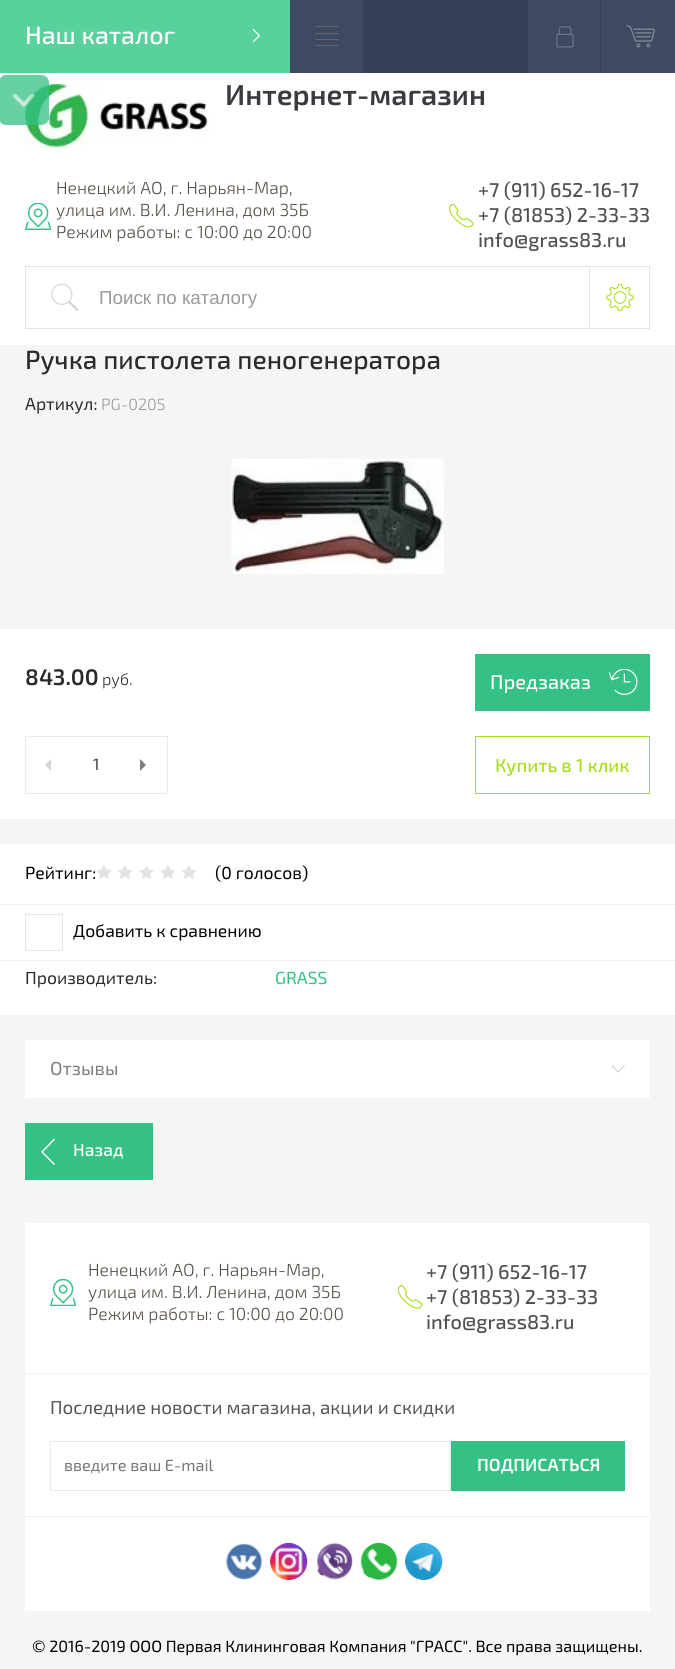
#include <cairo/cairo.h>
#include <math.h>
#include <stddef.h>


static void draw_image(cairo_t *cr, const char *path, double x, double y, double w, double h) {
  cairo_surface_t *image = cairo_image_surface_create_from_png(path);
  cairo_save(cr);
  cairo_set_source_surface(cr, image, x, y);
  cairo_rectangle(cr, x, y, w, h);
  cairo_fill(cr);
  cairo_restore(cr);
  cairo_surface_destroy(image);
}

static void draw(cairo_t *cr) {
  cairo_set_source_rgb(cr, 247 / 255.0, 244 / 255.0, 244 / 255.0);
  cairo_paint(cr);
  cairo_set_source_rgb(cr, 52 / 255.0, 64 / 255.0, 88 / 255.0);
  cairo_rectangle(cr, 363, 0, 238, 73);
  cairo_fill(cr);
  cairo_set_source_rgb(cr, 88 / 255.0, 209 / 255.0, 157 / 255.0);
  cairo_rectangle(cr, 0, 0, 290, 73);
  cairo_fill(cr);
  draw_image(cr, "images/1.png", 252, 29, 8, 14);
  cairo_set_source_rgb(cr, 62 / 255.0, 74 / 255.0, 97 / 255.0);
  cairo_rectangle(cr, 290, 0, 73, 73);
  cairo_fill(cr);
  cairo_set_source_rgb(cr, 101 / 255.0, 100 / 255.0, 104 / 255.0);
  cairo_rectangle(cr, 315, 26, 23, 1);
  cairo_fill(cr);
  cairo_rectangle(cr, 315, 33, 23, 1);
  cairo_fill(cr);
  cairo_rectangle(cr, 315, 39, 23, 1);
  cairo_fill(cr);
  cairo_rectangle(cr, 315, 45, 23, 1);
  cairo_fill(cr);
  cairo_set_source_rgb(cr, 62 / 255.0, 74 / 255.0, 97 / 255.0);
  cairo_rectangle(cr, 528, 0, 72, 73);
  cairo_fill(cr);
  draw_image(cr, "images/2.png", 556, 26, 18, 22);
  cairo_rectangle(cr, 601, 0, 74, 73);
  cairo_fill(cr);
  draw_image(cr, "images/3.png", 626, 25, 29, 23);
  cairo_set_source_rgb(cr, 1, 1, 1);
  cairo_rectangle(cr, 0, 73, 675, 272);
  cairo_fill(cr);
  draw_image(cr, "images/5.png", 25, 84, 184, 64);
  cairo_set_source_rgba(cr, 53 / 255.0, 193 / 255.0, 133 / 255.0, 0.5);
  cairo_new_path(cr);
  cairo_move_to(cr, 41, 125);
  cairo_line_to(cr, 6, 125);
  cairo_curve_to(cr, 2, 125, -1, 122, -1, 118);
  cairo_line_to(cr, -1, 82);
  cairo_curve_to(cr, -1, 78, 2, 75, 6, 75);
  cairo_line_to(cr, 41, 75);
  cairo_curve_to(cr, 45, 75, 49, 78, 49, 82);
  cairo_line_to(cr, 49, 118);
  cairo_curve_to(cr, 49, 122, 45, 125, 41, 125);
  cairo_close_path(cr);
  cairo_fill(cr);
  draw_image(cr, "images/4.png", 0, 75, 49, 50);
  draw_image(cr, "images/6.png", 25, 203, 26, 27);
  draw_image(cr, "images/7.png", 449, 204, 25, 24);
  cairo_rectangle(cr, 25.5, 266.5, 624, 62);
  cairo_set_source_rgb(cr, 228 / 255.0, 228 / 255.0, 228 / 255.0);
  cairo_set_line_width(cr, 1);
  cairo_stroke(cr);
  draw_image(cr, "images/8.png", 51, 284, 28, 27);
  cairo_rectangle(cr, 589, 266, 1, 63);
  cairo_fill(cr);
  draw_image(cr, "images/9.png", 606, 284, 28, 27);
  draw_image(cr, "images/10.png", 231, 459, 213, 115);
  cairo_set_source_rgb(cr, 1, 1, 1);
  cairo_rectangle(cr, 0, 629, 675, 190);
  cairo_fill(cr);
  cairo_rectangle(cr, 25.5, 736.5, 142, 57);
  cairo_set_source_rgb(cr, 234 / 255.0, 234 / 255.0, 234 / 255.0);
  cairo_stroke(cr);
  cairo_set_source_rgb(cr, 214 / 255.0, 214 / 255.0, 214 / 255.0);
  cairo_new_path(cr);
  cairo_move_to(cr, 51, 759);
  cairo_line_to(cr, 51, 771);
  cairo_line_to(cr, 45, 765);
  cairo_close_path(cr);
  cairo_fill(cr);
  cairo_set_source_rgb(cr, 126 / 255.0, 126 / 255.0, 126 / 255.0);
  cairo_new_path(cr);
  cairo_move_to(cr, 140, 771);
  cairo_line_to(cr, 140, 759);
  cairo_line_to(cr, 146, 765);
  cairo_close_path(cr);
  cairo_fill(cr);
  cairo_set_source_rgb(cr, 53 / 255.0, 193 / 255.0, 133 / 255.0);
  cairo_rectangle(cr, 475, 654, 175, 57);
  cairo_fill(cr);
  draw_image(cr, "images/11.png", 609, 669, 29, 26);
  cairo_rectangle(cr, 475.5, 736.5, 174, 57);
  cairo_set_source_rgb(cr, 168 / 255.0, 222 / 255.0, 24 / 255.0);
  cairo_stroke(cr);
  cairo_set_source_rgb(cr, 1, 1, 1);
  cairo_rectangle(cr, 0, 844, 675, 171);
  cairo_fill(cr);
  cairo_set_source_rgb(cr, 240 / 255.0, 240 / 255.0, 240 / 255.0);
  cairo_rectangle(cr, 0, 904, 675, 1);
  cairo_fill(cr);
  draw_image(cr, "images/12.png", 96, 865, 100, 14);
  cairo_rectangle(cr, 0, 960, 675, 1);
  cairo_fill(cr);
  cairo_rectangle(cr, 25.5, 914.5, 37, 36);
  cairo_set_source_rgb(cr, 230 / 255.0, 230 / 255.0, 230 / 255.0);
  cairo_stroke(cr);
  cairo_set_source_rgb(cr, 1, 1, 1);
  cairo_rectangle(cr, 25, 1040, 625, 58);
  cairo_fill(cr);
  draw_image(cr, "images/13.png", 611, 1065, 14, 8);
  cairo_set_source_rgb(cr, 53 / 255.0, 193 / 255.0, 133 / 255.0);
  cairo_rectangle(cr, 25, 1123, 128, 57);
  cairo_fill(cr);
  cairo_set_source_rgb(cr, 1, 1, 1);
  cairo_set_fill_rule(cr, CAIRO_FILL_RULE_EVEN_ODD);
  cairo_new_path(cr);
  cairo_move_to(cr, 55, 1164);
  cairo_line_to(cr, 54, 1165);
  cairo_line_to(cr, 41, 1152);
  cairo_line_to(cr, 54, 1138.5);
  cairo_line_to(cr, 55, 1139.5);
  cairo_line_to(cr, 43, 1152);
  cairo_close_path(cr);
  cairo_fill(cr);
  cairo_rectangle(cr, 25, 1223, 625, 388);
  cairo_fill(cr);
  draw_image(cr, "images/14.png", 50, 1279, 26, 27);
  draw_image(cr, "images/15.png", 398, 1285, 25, 24);
  cairo_set_source_rgb(cr, 240 / 255.0, 240 / 255.0, 240 / 255.0);
  cairo_rectangle(cr, 25, 1373, 625, 1);
  cairo_fill(cr);
  cairo_rectangle(cr, 25, 1516, 625, 1);
  cairo_fill(cr);
  cairo_rectangle(cr, 50.5, 1441.5, 400, 49);
  cairo_set_source_rgb(cr, 234 / 255.0, 234 / 255.0, 234 / 255.0);
  cairo_stroke(cr);
  cairo_set_source_rgb(cr, 53 / 255.0, 193 / 255.0, 133 / 255.0);
  cairo_rectangle(cr, 451, 1441, 174, 50);
  cairo_fill(cr);
  draw_image(cr, "images/16.png", 226, 1543, 37, 37);
  draw_image(cr, "images/17.png", 270, 1542, 38, 39);
  draw_image(cr, "images/18.png", 316, 1543, 37, 37);
  draw_image(cr, "images/19.png", 360, 1542, 38, 39);
  draw_image(cr, "images/20.png", 405, 1542, 38, 39);
  cairo_select_font_face(cr, "Exo 2 Medium", CAIRO_FONT_SLANT_NORMAL, CAIRO_FONT_WEIGHT_NORMAL);
  cairo_set_font_size(cr, 25);
  cairo_set_source_rgb(cr, 1, 1, 1);
  cairo_move_to(cr, 25, 44);
  cairo_show_text(cr, "Наш каталог");
  cairo_select_font_face(cr, "Exo 2 SemiBold", CAIRO_FONT_SLANT_NORMAL, CAIRO_FONT_WEIGHT_NORMAL);
  cairo_set_font_size(cr, 28.75);
  cairo_set_source_rgb(cr, 60 / 255.0, 57 / 255.0, 64 / 255.0);
  cairo_move_to(cr, 225, 105);
  cairo_show_text(cr, "Интернет-магазин");
  cairo_select_font_face(cr, "Exo 2 Light", CAIRO_FONT_SLANT_NORMAL, CAIRO_FONT_WEIGHT_NORMAL);
  cairo_set_font_size(cr, 17.5);
  cairo_set_source_rgb(cr, 84 / 255.0, 77 / 255.0, 70 / 255.0);
  cairo_move_to(cr, 56, 194);
  cairo_show_text(cr, "Ненецкий АО, г. Нарьян-Мар,");
  cairo_move_to(cr, 56, 216);
  cairo_show_text(cr, "улица им. В.И. Ленина, дом 35Б");
  cairo_move_to(cr, 56, 238);
  cairo_show_text(cr, "Режим работы: с 10:00 до 20:00");
  cairo_select_font_face(cr, "Exo 2 Medium", CAIRO_FONT_SLANT_NORMAL, CAIRO_FONT_WEIGHT_NORMAL);
  cairo_set_font_size(cr, 20);
  cairo_set_source_rgb(cr, 80 / 255.0, 79 / 255.0, 79 / 255.0);
  cairo_move_to(cr, 478, 197);
  cairo_show_text(cr, "+7 (911) 652-16-17");
  cairo_move_to(cr, 478, 222);
  cairo_show_text(cr, "+7 (81853) 2-33-33");
  cairo_move_to(cr, 478, 247);
  cairo_show_text(cr, "info@grass83.ru");
  cairo_select_font_face(cr, "Liberation Sans", CAIRO_FONT_SLANT_NORMAL, CAIRO_FONT_WEIGHT_NORMAL);
  cairo_set_font_size(cr, 18.75);
  cairo_set_source_rgb(cr, 153 / 255.0, 153 / 255.0, 153 / 255.0);
  cairo_move_to(cr, 99, 304);
  cairo_show_text(cr, "Поиск по каталогу");
  cairo_select_font_face(cr, "Exo 2 Medium", CAIRO_FONT_SLANT_NORMAL, CAIRO_FONT_WEIGHT_NORMAL);
  cairo_set_font_size(cr, 26.25);
  cairo_set_source_rgb(cr, 43 / 255.0, 41 / 255.0, 46 / 255.0);
  cairo_move_to(cr, 25, 369);
  cairo_show_text(cr, "Ручка пистолета пеногенератора");
  cairo_select_font_face(cr, "Exo 2", CAIRO_FONT_SLANT_NORMAL, CAIRO_FONT_WEIGHT_NORMAL);
  cairo_set_font_size(cr, 17.5);
  cairo_move_to(cr, 25, 410);
  cairo_show_text(cr, "Артикул:");
  cairo_select_font_face(cr, "Exo 2 Light", CAIRO_FONT_SLANT_NORMAL, CAIRO_FONT_WEIGHT_NORMAL);
  cairo_set_font_size(cr, 16.25);
  cairo_set_source_rgb(cr, 153 / 255.0, 153 / 255.0, 153 / 255.0);
  cairo_move_to(cr, 101, 410);
  cairo_show_text(cr, "PG-0205");
  cairo_select_font_face(cr, "Exo 2 SemiBold", CAIRO_FONT_SLANT_NORMAL, CAIRO_FONT_WEIGHT_NORMAL);
  cairo_set_font_size(cr, 22.5);
  cairo_set_source_rgb(cr, 43 / 255.0, 41 / 255.0, 46 / 255.0);
  cairo_move_to(cr, 25, 685);
  cairo_show_text(cr, "843.00");
  cairo_select_font_face(cr, "Exo 2 Light", CAIRO_FONT_SLANT_NORMAL, CAIRO_FONT_WEIGHT_NORMAL);
  cairo_set_font_size(cr, 16.25);
  cairo_move_to(cr, 102, 685);
  cairo_show_text(cr, "руб.");
  cairo_select_font_face(cr, "Exo 2", CAIRO_FONT_SLANT_NORMAL, CAIRO_FONT_WEIGHT_NORMAL);
  cairo_set_source_rgb(cr, 60 / 255.0, 57 / 255.0, 64 / 255.0);
  cairo_move_to(cr, 93, 770);
  cairo_show_text(cr, "1");
  cairo_select_font_face(cr, "Exo 2 Medium", CAIRO_FONT_SLANT_NORMAL, CAIRO_FONT_WEIGHT_NORMAL);
  cairo_set_font_size(cr, 20);
  cairo_set_source_rgb(cr, 1, 1, 1);
  cairo_move_to(cr, 490, 689);
  cairo_show_text(cr, "Предзаказ");
  cairo_set_font_size(cr, 18.75);
  cairo_set_source_rgb(cr, 168 / 255.0, 222 / 255.0, 24 / 255.0);
  cairo_move_to(cr, 495, 772);
  cairo_show_text(cr, "Купить в 1 клик");
  cairo_select_font_face(cr, "Exo 2", CAIRO_FONT_SLANT_NORMAL, CAIRO_FONT_WEIGHT_NORMAL);
  cairo_set_font_size(cr, 17.5);
  cairo_set_source_rgb(cr, 0, 0, 0);
  cairo_move_to(cr, 25, 879);
  cairo_show_text(cr, "Рейтинг:");
  cairo_move_to(cr, 215, 879);
  cairo_show_text(cr, "(0 голосов)");
  cairo_move_to(cr, 73, 937);
  cairo_show_text(cr, "Добавить к сравнению");
  cairo_set_source_rgb(cr, 43 / 255.0, 41 / 255.0, 46 / 255.0);
  cairo_move_to(cr, 25, 984);
  cairo_show_text(cr, "Производитель:");
  cairo_set_source_rgb(cr, 53 / 255.0, 193 / 255.0, 133 / 255.0);
  cairo_move_to(cr, 275, 984);
  cairo_show_text(cr, "GRASS");
  cairo_set_font_size(cr, 18.75);
  cairo_set_source_rgb(cr, 127 / 255.0, 125 / 255.0, 129 / 255.0);
  cairo_move_to(cr, 50, 1075);
  cairo_show_text(cr, "Отзывы");
  cairo_select_font_face(cr, "Exo 2 Medium", CAIRO_FONT_SLANT_NORMAL, CAIRO_FONT_WEIGHT_NORMAL);
  cairo_set_font_size(cr, 17.5);
  cairo_set_source_rgb(cr, 1, 1, 1);
  cairo_move_to(cr, 73, 1156);
  cairo_show_text(cr, "Назад");
  cairo_select_font_face(cr, "Exo 2 Light", CAIRO_FONT_SLANT_NORMAL, CAIRO_FONT_WEIGHT_NORMAL);
  cairo_set_source_rgb(cr, 84 / 255.0, 77 / 255.0, 70 / 255.0);
  cairo_move_to(cr, 88, 1276);
  cairo_show_text(cr, "Ненецкий АО, г. Нарьян-Мар,");
  cairo_move_to(cr, 88, 1298);
  cairo_show_text(cr, "улица им. В.И. Ленина, дом 35Б");
  cairo_move_to(cr, 88, 1320);
  cairo_show_text(cr, "Режим работы: с 10:00 до 20:00");
  cairo_select_font_face(cr, "Exo 2 Medium", CAIRO_FONT_SLANT_NORMAL, CAIRO_FONT_WEIGHT_NORMAL);
  cairo_set_font_size(cr, 20);
  cairo_set_source_rgb(cr, 80 / 255.0, 79 / 255.0, 79 / 255.0);
  cairo_move_to(cr, 426, 1279);
  cairo_show_text(cr, "+7 (911) 652-16-17");
  cairo_move_to(cr, 426, 1304);
  cairo_show_text(cr, "+7 (81853) 2-33-33");
  cairo_move_to(cr, 426, 1329);
  cairo_show_text(cr, "info@grass83.ru");
  cairo_select_font_face(cr, "Exo 2", CAIRO_FONT_SLANT_NORMAL, CAIRO_FONT_WEIGHT_NORMAL);
  cairo_set_font_size(cr, 18.75);
  cairo_set_source_rgb(cr, 86 / 255.0, 84 / 255.0, 88 / 255.0);
  cairo_move_to(cr, 50, 1414);
  cairo_show_text(cr, "Последние новости магазина, акции и скидки");
  cairo_set_font_size(cr, 16.25);
  cairo_set_source_rgb(cr, 117 / 255.0, 117 / 255.0, 117 / 255.0);
  cairo_move_to(cr, 64, 1471);
  cairo_show_text(cr, "введите ваш E-mail");
  cairo_select_font_face(cr, "Exo 2 SemiBold", CAIRO_FONT_SLANT_NORMAL, CAIRO_FONT_WEIGHT_NORMAL);
  cairo_set_font_size(cr, 17.5);
  cairo_set_source_rgb(cr, 1, 1, 1);
  cairo_move_to(cr, 477, 1471);
  cairo_show_text(cr, "ПОДПИСАТЬСЯ");
  cairo_select_font_face(cr, "Exo 2", CAIRO_FONT_SLANT_NORMAL, CAIRO_FONT_WEIGHT_NORMAL);
  cairo_set_font_size(cr, 16.25);
  cairo_set_source_rgb(cr, 0, 0, 0);
  cairo_move_to(cr, 32, 1652);
  cairo_show_text(cr, "© 2016-2019 ООО Первая Клининговая Компания \"ГРАСС\". Все права защищены.");
}

int main(void) {
  cairo_surface_t *surface = cairo_image_surface_create(CAIRO_FORMAT_RGB24, 675, 1669);
  cairo_t *cr = cairo_create(surface);
  cairo_font_options_t *options = cairo_font_options_create();
  cairo_font_options_set_hint_metrics(options, CAIRO_HINT_METRICS_OFF);
  cairo_font_options_set_hint_style(options, CAIRO_HINT_STYLE_NONE);
  cairo_set_font_options(cr, options);
  cairo_set_miter_limit(cr, 4);
  draw(cr);
  cairo_surface_write_to_png(surface, "out.png");
  cairo_font_options_destroy(options);
  cairo_destroy(cr);
  cairo_surface_destroy(surface);
  return 0;
}
